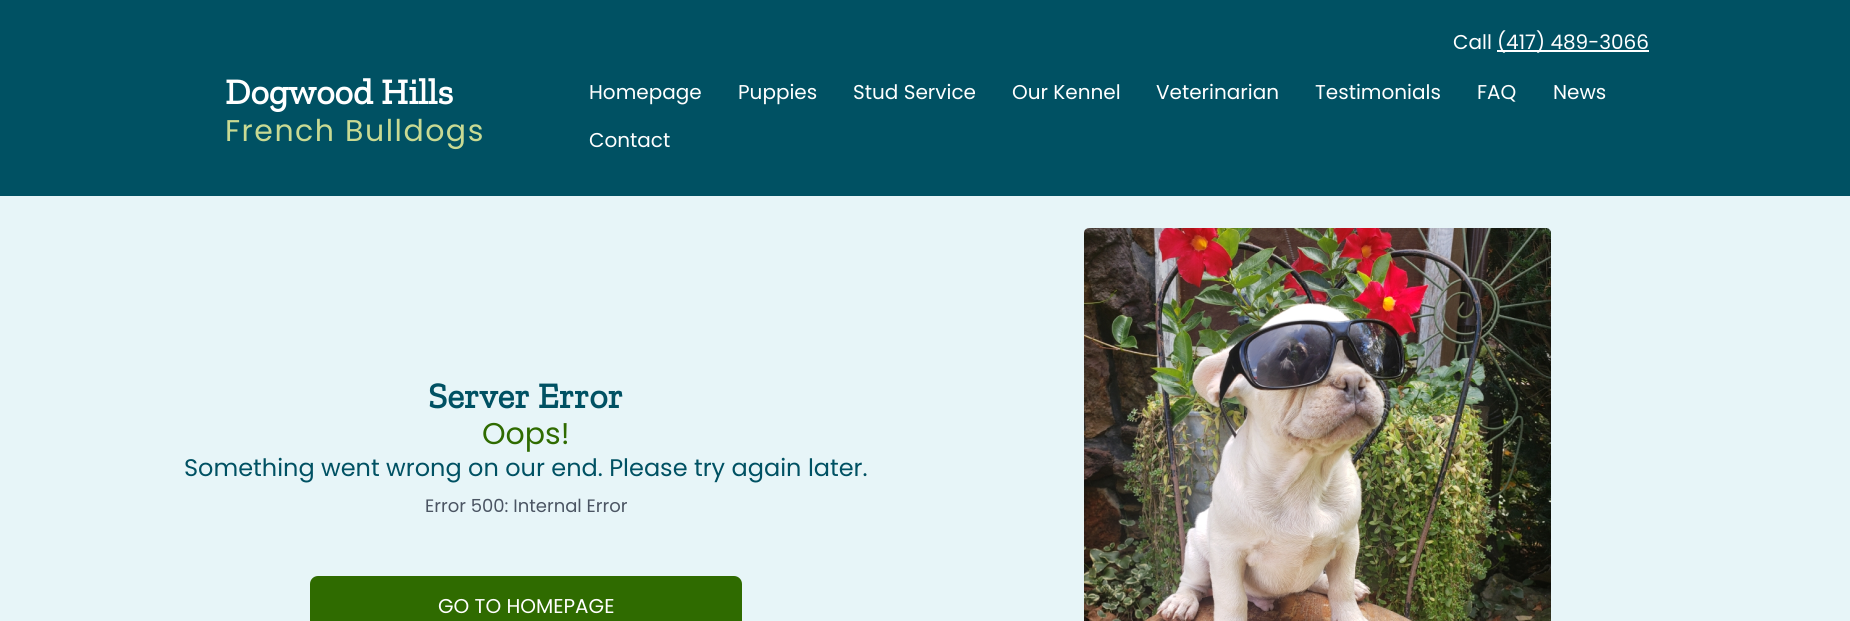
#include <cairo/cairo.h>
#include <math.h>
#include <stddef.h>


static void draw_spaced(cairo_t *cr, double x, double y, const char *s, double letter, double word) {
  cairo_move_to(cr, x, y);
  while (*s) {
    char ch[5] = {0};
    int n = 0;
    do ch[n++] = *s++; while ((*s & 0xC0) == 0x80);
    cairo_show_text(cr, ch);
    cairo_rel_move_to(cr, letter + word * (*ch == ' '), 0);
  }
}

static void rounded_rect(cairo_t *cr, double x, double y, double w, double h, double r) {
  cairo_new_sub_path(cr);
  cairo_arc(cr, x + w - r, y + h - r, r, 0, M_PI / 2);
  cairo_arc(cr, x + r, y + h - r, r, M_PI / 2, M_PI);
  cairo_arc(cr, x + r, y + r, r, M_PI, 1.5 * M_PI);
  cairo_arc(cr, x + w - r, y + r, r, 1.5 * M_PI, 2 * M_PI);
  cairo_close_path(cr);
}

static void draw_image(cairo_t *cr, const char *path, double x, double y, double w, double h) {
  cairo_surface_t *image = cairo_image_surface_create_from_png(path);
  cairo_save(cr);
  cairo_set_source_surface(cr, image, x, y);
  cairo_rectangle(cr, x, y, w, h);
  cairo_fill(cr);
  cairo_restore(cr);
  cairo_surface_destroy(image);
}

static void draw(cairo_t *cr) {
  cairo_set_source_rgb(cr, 0, 81 / 255.0, 99 / 255.0);
  cairo_paint(cr);
  cairo_set_source_rgb(cr, 1, 1, 1);
  cairo_rectangle(cr, 1497, 50, 152, 2);
  cairo_fill(cr);
  cairo_set_source_rgb(cr, 231 / 255.0, 245 / 255.0, 248 / 255.0);
  cairo_rectangle(cr, 0, 196, 1850, 425);
  cairo_fill(cr);
  cairo_set_source_rgb(cr, 47 / 255.0, 107 / 255.0, 0);
  rounded_rect(cr, 310, 576, 432, 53, 8);
  cairo_fill(cr);
  draw_image(cr, "images/1.png", 1084, 228, 467, 393);
  cairo_select_font_face(cr, "Poppins", CAIRO_FONT_SLANT_NORMAL, CAIRO_FONT_WEIGHT_NORMAL);
  cairo_set_font_size(cr, 20);
  cairo_set_source_rgb(cr, 1, 1, 1);
  cairo_move_to(cr, 1453, 49);
  cairo_show_text(cr, "Call");
  cairo_move_to(cr, 1497, 49);
  cairo_show_text(cr, "(417) 489-3066");
  cairo_select_font_face(cr, "Zilla Slab", CAIRO_FONT_SLANT_NORMAL, CAIRO_FONT_WEIGHT_BOLD);
  cairo_set_font_size(cr, 36);
  cairo_move_to(cr, 225, 104);
  cairo_show_text(cr, "Dogwood Hills");
  cairo_select_font_face(cr, "Poppins", CAIRO_FONT_SLANT_NORMAL, CAIRO_FONT_WEIGHT_NORMAL);
  cairo_set_font_size(cr, 30);
  cairo_set_source_rgb(cr, 201 / 255.0, 218 / 255.0, 147 / 255.0);
  draw_spaced(cr, 225, 141, "French Bulldogs", 1.5, 0);
  cairo_set_font_size(cr, 20);
  cairo_set_source_rgb(cr, 1, 1, 1);
  cairo_move_to(cr, 589, 99);
  cairo_show_text(cr, "Homepage");
  cairo_move_to(cr, 738, 99);
  cairo_show_text(cr, "Puppies");
  cairo_move_to(cr, 853, 99);
  cairo_show_text(cr, "Stud Service");
  cairo_move_to(cr, 1012, 99);
  cairo_show_text(cr, "Our Kennel");
  cairo_move_to(cr, 1156, 99);
  cairo_show_text(cr, "Veterinarian");
  cairo_move_to(cr, 1315, 99);
  cairo_show_text(cr, "Testimonials");
  cairo_move_to(cr, 1477, 99);
  cairo_show_text(cr, "FAQ");
  cairo_move_to(cr, 1553, 99);
  cairo_show_text(cr, "News");
  cairo_move_to(cr, 589, 147);
  cairo_show_text(cr, "Contact");
  cairo_select_font_face(cr, "Zilla Slab", CAIRO_FONT_SLANT_NORMAL, CAIRO_FONT_WEIGHT_BOLD);
  cairo_set_font_size(cr, 36);
  cairo_set_source_rgb(cr, 0, 81 / 255.0, 99 / 255.0);
  cairo_move_to(cr, 428, 408);
  cairo_show_text(cr, "Server Error");
  cairo_select_font_face(cr, "Poppins", CAIRO_FONT_SLANT_NORMAL, CAIRO_FONT_WEIGHT_NORMAL);
  cairo_set_font_size(cr, 30);
  cairo_set_source_rgb(cr, 47 / 255.0, 107 / 255.0, 0);
  cairo_move_to(cr, 482, 444);
  cairo_show_text(cr, "Oops!");
  cairo_set_font_size(cr, 24);
  cairo_set_source_rgb(cr, 0, 81 / 255.0, 99 / 255.0);
  cairo_move_to(cr, 184, 476);
  cairo_show_text(cr, "Something went wrong on our end. Please try again later.");
  cairo_set_font_size(cr, 18);
  cairo_set_source_rgb(cr, 75 / 255.0, 85 / 255.0, 99 / 255.0);
  cairo_move_to(cr, 425, 512);
  cairo_show_text(cr, "Error 500: Internal Error");
  cairo_set_font_size(cr, 20);
  cairo_set_source_rgb(cr, 1, 1, 1);
  cairo_move_to(cr, 438, 613);
  cairo_show_text(cr, "GO TO HOMEPAGE");
}

int main(void) {
  cairo_surface_t *surface = cairo_image_surface_create(CAIRO_FORMAT_RGB24, 1850, 621);
  cairo_t *cr = cairo_create(surface);
  cairo_font_options_t *options = cairo_font_options_create();
  cairo_font_options_set_hint_metrics(options, CAIRO_HINT_METRICS_OFF);
  cairo_font_options_set_hint_style(options, CAIRO_HINT_STYLE_NONE);
  cairo_set_font_options(cr, options);
  cairo_set_miter_limit(cr, 4);
  draw(cr);
  cairo_surface_write_to_png(surface, "out.png");
  cairo_font_options_destroy(options);
  cairo_destroy(cr);
  cairo_surface_destroy(surface);
  return 0;
}
